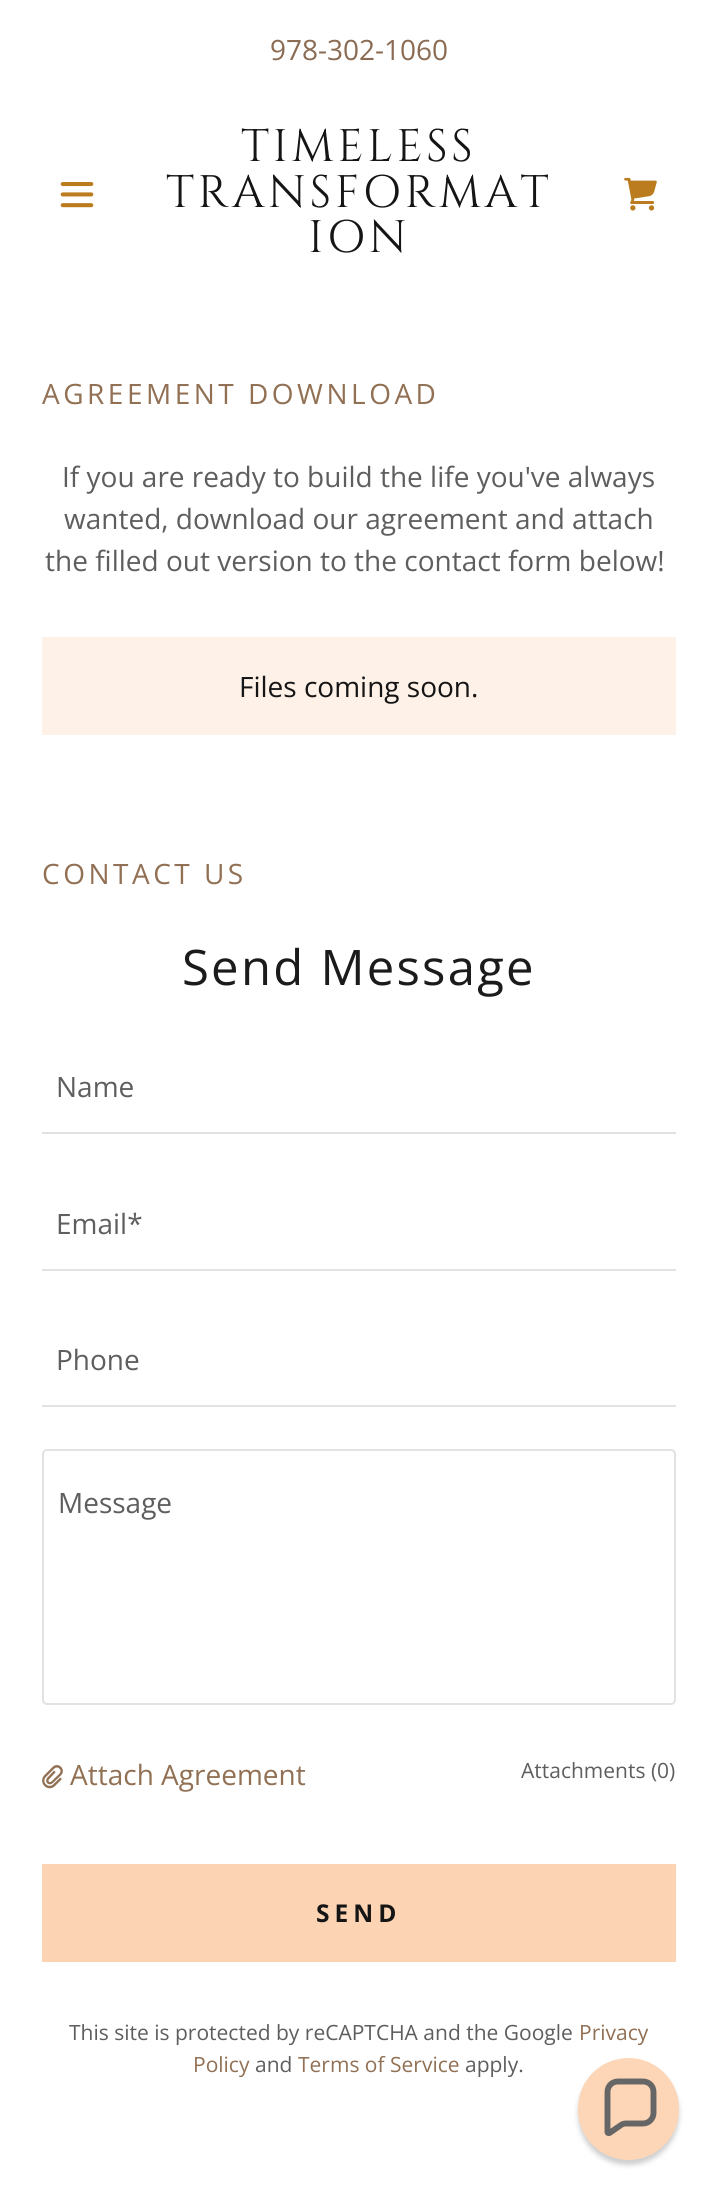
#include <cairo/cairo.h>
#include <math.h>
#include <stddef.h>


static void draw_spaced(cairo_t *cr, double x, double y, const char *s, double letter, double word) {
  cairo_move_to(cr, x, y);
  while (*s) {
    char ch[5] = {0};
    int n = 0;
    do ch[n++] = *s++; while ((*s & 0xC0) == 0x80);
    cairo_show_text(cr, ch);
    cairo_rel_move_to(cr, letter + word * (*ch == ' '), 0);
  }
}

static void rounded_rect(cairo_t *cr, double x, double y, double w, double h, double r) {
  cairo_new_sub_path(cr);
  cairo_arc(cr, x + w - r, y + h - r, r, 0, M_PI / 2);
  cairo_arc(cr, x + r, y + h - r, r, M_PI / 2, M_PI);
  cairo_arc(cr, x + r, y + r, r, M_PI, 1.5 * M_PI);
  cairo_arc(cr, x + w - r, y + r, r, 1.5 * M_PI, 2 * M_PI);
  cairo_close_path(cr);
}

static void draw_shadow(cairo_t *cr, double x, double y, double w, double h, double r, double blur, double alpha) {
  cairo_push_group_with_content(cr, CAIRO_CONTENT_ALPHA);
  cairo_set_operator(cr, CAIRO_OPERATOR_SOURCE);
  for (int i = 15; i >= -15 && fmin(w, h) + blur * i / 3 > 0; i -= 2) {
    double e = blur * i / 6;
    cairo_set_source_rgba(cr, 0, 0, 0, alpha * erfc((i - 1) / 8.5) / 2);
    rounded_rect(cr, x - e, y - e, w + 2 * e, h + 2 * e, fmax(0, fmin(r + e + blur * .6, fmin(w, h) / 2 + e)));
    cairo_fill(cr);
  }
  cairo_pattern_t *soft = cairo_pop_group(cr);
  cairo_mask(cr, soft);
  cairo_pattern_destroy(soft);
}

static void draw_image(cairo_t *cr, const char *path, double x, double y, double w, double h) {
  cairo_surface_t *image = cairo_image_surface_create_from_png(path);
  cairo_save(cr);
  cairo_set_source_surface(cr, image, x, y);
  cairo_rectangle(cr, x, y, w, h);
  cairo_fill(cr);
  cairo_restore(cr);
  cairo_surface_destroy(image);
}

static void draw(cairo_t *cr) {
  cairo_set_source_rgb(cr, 1, 1, 1);
  cairo_paint(cr);
  draw_image(cr, "images/1.png", 60, 182, 34, 26);
  draw_image(cr, "images/2.png", 624, 177, 33, 34);
  cairo_set_source_rgb(cr, 254 / 255.0, 241 / 255.0, 232 / 255.0);
  cairo_rectangle(cr, 42, 637, 634, 98);
  cairo_fill(cr);
  cairo_set_source_rgb(cr, 226 / 255.0, 226 / 255.0, 226 / 255.0);
  cairo_rectangle(cr, 42, 1132, 634, 2);
  cairo_fill(cr);
  cairo_rectangle(cr, 42, 1269, 634, 2);
  cairo_fill(cr);
  cairo_rectangle(cr, 42, 1405, 634, 2);
  cairo_fill(cr);
  rounded_rect(cr, 43, 1450, 632, 254, 4);
  cairo_stroke(cr);
  draw_image(cr, "images/3.png", 42, 1765, 21, 24);
  cairo_set_source_rgb(cr, 253 / 255.0, 212 / 255.0, 179 / 255.0);
  cairo_rectangle(cr, 42, 1864, 634, 98);
  cairo_fill(cr);
  cairo_set_source_rgb(cr, 13 / 255.0, 13 / 255.0, 13 / 255.0);
  draw_shadow(cr, 578, 2063, 101, 102, 50.5, 2.5, 0.2);
  cairo_set_source_rgb(cr, 253 / 255.0, 214 / 255.0, 183 / 255.0);
  rounded_rect(cr, 578, 2058, 101, 102, 50.5);
  cairo_fill(cr);
  cairo_new_path(cr);
  cairo_move_to(cr, 643, 2081.5);
  cairo_line_to(cr, 618, 2081.5);
  cairo_curve_to(cr, 612, 2081.5, 607.5, 2086, 607.5, 2092);
  cairo_line_to(cr, 607.5, 2132);
  cairo_curve_to(cr, 607.5, 2133, 608.5, 2133.5, 609.5, 2133);
  cairo_line_to(cr, 621, 2125);
  cairo_curve_to(cr, 622.5, 2124, 624, 2123.5, 626, 2123.5);
  cairo_line_to(cr, 643, 2123.5);
  cairo_curve_to(cr, 649, 2123.5, 653.5, 2118.5, 653.5, 2113);
  cairo_line_to(cr, 653.5, 2092);
  cairo_curve_to(cr, 653.5, 2086, 649, 2081.5, 643, 2081.5);
  cairo_close_path(cr);
  cairo_set_source_rgb(cr, 102 / 255.0, 102 / 255.0, 102 / 255.0);
  cairo_set_line_width(cr, 5.9);
  cairo_stroke(cr);
  cairo_select_font_face(cr, "Open Sans", CAIRO_FONT_SLANT_NORMAL, CAIRO_FONT_WEIGHT_NORMAL);
  cairo_set_font_size(cr, 28);
  cairo_set_source_rgb(cr, 138 / 255.0, 107 / 255.0, 83 / 255.0);
  cairo_move_to(cr, 270, 60);
  cairo_show_text(cr, "978-302-1060");
  cairo_select_font_face(cr, "Cinzel", CAIRO_FONT_SLANT_NORMAL, CAIRO_FONT_WEIGHT_NORMAL);
  cairo_set_font_size(cr, 45.5);
  cairo_set_source_rgb(cr, 21 / 255.0, 21 / 255.0, 21 / 255.0);
  draw_spaced(cr, 241, 161, "TIMELESS", 3.5, 0);
  draw_spaced(cr, 166, 207, "TRANSFORMAT", 3.5, 0);
  draw_spaced(cr, 308, 252, "ION", 3.5, 0);
  cairo_select_font_face(cr, "Open Sans", CAIRO_FONT_SLANT_NORMAL, CAIRO_FONT_WEIGHT_NORMAL);
  cairo_set_font_size(cr, 28);
  cairo_set_source_rgb(cr, 145 / 255.0, 112 / 255.0, 84 / 255.0);
  draw_spaced(cr, 42, 404, "AGREEMENT DOWNLOAD", 3.5, 0);
  cairo_set_source_rgb(cr, 94 / 255.0, 94 / 255.0, 94 / 255.0);
  cairo_move_to(cr, 62, 487);
  cairo_show_text(cr, "If you are ready to build the life you've always");
  cairo_move_to(cr, 64, 529);
  cairo_show_text(cr, "wanted, download our agreement and attach");
  cairo_move_to(cr, 45, 571);
  cairo_show_text(cr, "the filled out version to the contact form below!");
  cairo_set_source_rgb(cr, 21 / 255.0, 21 / 255.0, 21 / 255.0);
  cairo_move_to(cr, 239, 697);
  cairo_show_text(cr, "Files coming soon.");
  cairo_set_source_rgb(cr, 145 / 255.0, 112 / 255.0, 84 / 255.0);
  draw_spaced(cr, 42, 884, "CONTACT US", 3.5, 0);
  cairo_set_font_size(cr, 49);
  cairo_set_source_rgb(cr, 27 / 255.0, 27 / 255.0, 27 / 255.0);
  draw_spaced(cr, 182, 985, "Send Message", 2.25, 0);
  cairo_set_font_size(cr, 28);
  cairo_set_source_rgb(cr, 94 / 255.0, 94 / 255.0, 94 / 255.0);
  cairo_move_to(cr, 56, 1097);
  cairo_show_text(cr, "Name");
  cairo_move_to(cr, 56, 1234);
  cairo_show_text(cr, "Email*");
  cairo_move_to(cr, 56, 1370);
  cairo_show_text(cr, "Phone");
  cairo_move_to(cr, 58, 1513);
  cairo_show_text(cr, "Message");
  cairo_set_source_rgb(cr, 145 / 255.0, 112 / 255.0, 84 / 255.0);
  cairo_move_to(cr, 70, 1785);
  cairo_show_text(cr, "Attach Agreement");
  cairo_set_font_size(cr, 21);
  cairo_set_source_rgb(cr, 94 / 255.0, 94 / 255.0, 94 / 255.0);
  cairo_move_to(cr, 521, 1778);
  cairo_show_text(cr, "Attachments (0)");
  cairo_select_font_face(cr, "Open Sans", CAIRO_FONT_SLANT_NORMAL, CAIRO_FONT_WEIGHT_BOLD);
  cairo_set_font_size(cr, 24.5);
  cairo_set_source_rgb(cr, 21 / 255.0, 21 / 255.0, 21 / 255.0);
  draw_spaced(cr, 316, 1922, "SEND", 5, 0);
  cairo_select_font_face(cr, "Open Sans", CAIRO_FONT_SLANT_NORMAL, CAIRO_FONT_WEIGHT_NORMAL);
  cairo_set_font_size(cr, 21);
  cairo_set_source_rgb(cr, 94 / 255.0, 94 / 255.0, 94 / 255.0);
  cairo_move_to(cr, 69, 2040);
  cairo_show_text(cr, "This site is protected by reCAPTCHA and the Google");
  cairo_set_source_rgb(cr, 145 / 255.0, 112 / 255.0, 84 / 255.0);
  cairo_move_to(cr, 579, 2040);
  cairo_show_text(cr, "Privacy");
  cairo_move_to(cr, 193, 2072);
  cairo_show_text(cr, "Policy");
  cairo_set_source_rgb(cr, 94 / 255.0, 94 / 255.0, 94 / 255.0);
  cairo_move_to(cr, 255, 2072);
  cairo_show_text(cr, "and");
  cairo_set_source_rgb(cr, 145 / 255.0, 112 / 255.0, 84 / 255.0);
  cairo_move_to(cr, 298, 2072);
  cairo_show_text(cr, "Terms of Service");
  cairo_set_source_rgb(cr, 94 / 255.0, 94 / 255.0, 94 / 255.0);
  cairo_move_to(cr, 465, 2072);
  cairo_show_text(cr, "apply.");
}

int main(void) {
  cairo_surface_t *surface = cairo_image_surface_create(CAIRO_FORMAT_RGB24, 716, 2198);
  cairo_t *cr = cairo_create(surface);
  cairo_font_options_t *options = cairo_font_options_create();
  cairo_font_options_set_hint_metrics(options, CAIRO_HINT_METRICS_OFF);
  cairo_font_options_set_hint_style(options, CAIRO_HINT_STYLE_NONE);
  cairo_set_font_options(cr, options);
  cairo_set_miter_limit(cr, 4);
  draw(cr);
  cairo_surface_write_to_png(surface, "out.png");
  cairo_font_options_destroy(options);
  cairo_destroy(cr);
  cairo_surface_destroy(surface);
  return 0;
}
